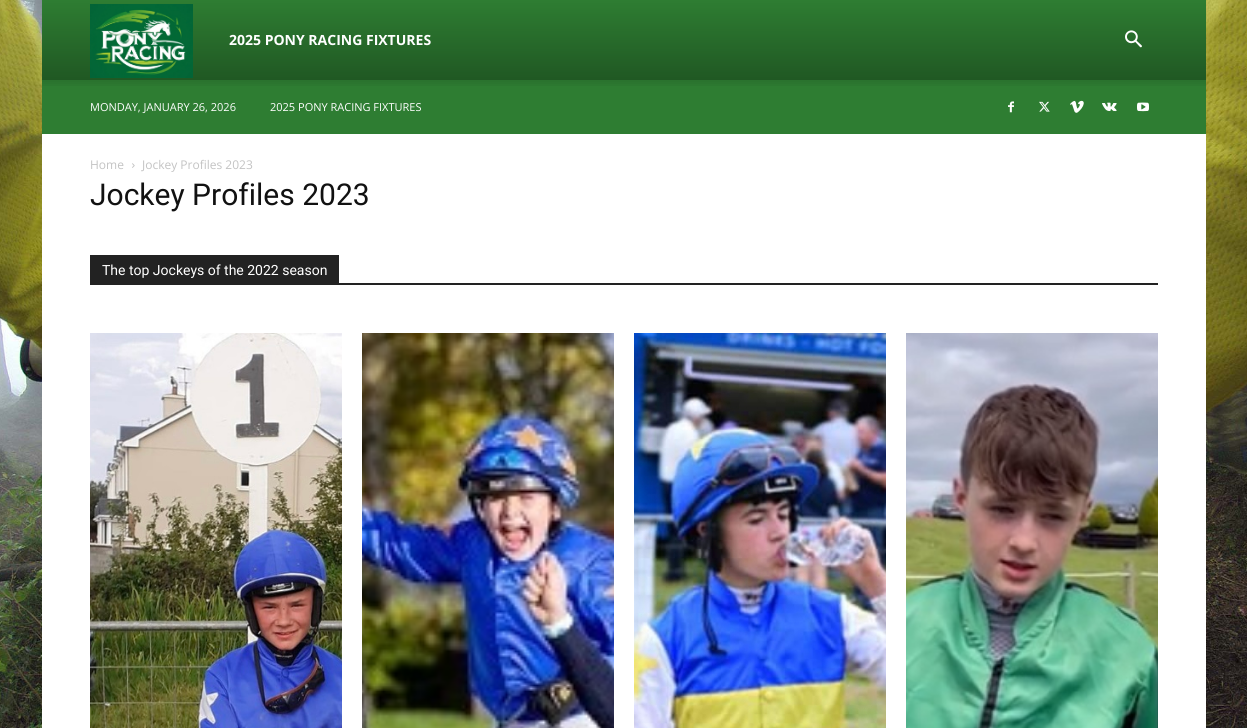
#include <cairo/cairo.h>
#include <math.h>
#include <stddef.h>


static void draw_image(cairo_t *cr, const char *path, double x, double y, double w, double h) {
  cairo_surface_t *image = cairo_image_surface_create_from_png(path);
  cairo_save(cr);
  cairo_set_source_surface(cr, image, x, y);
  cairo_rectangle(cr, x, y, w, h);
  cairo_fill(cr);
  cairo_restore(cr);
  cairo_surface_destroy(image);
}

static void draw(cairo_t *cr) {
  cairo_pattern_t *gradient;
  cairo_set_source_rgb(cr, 1, 1, 1);
  cairo_paint(cr);
  draw_image(cr, "images/1.png", 0, 0, 1247, 728);
  gradient = cairo_pattern_create_linear(624, 0, 624, 80);
  cairo_pattern_add_color_stop_rgba(gradient, 0, 46 / 255.0, 125 / 255.0, 50 / 255.0, 1);
  cairo_pattern_add_color_stop_rgba(gradient, 1, 32 / 255.0, 88 / 255.0, 35 / 255.0, 1);
  cairo_set_source(cr, gradient);
  cairo_pattern_destroy(gradient);
  cairo_rectangle(cr, 42, 0, 1164, 80);
  cairo_fill(cr);
  draw_image(cr, "images/2.png", 90, 4, 103, 74);
  draw_image(cr, "images/3.png", 1125, 30, 17, 18);
  cairo_set_source_rgb(cr, 46 / 255.0, 125 / 255.0, 50 / 255.0);
  cairo_rectangle(cr, 42, 80, 1164, 54);
  cairo_fill(cr);
  draw_image(cr, "images/4.png", 42, 80, 1164, 6);
  draw_image(cr, "images/5.png", 1008, 101, 6, 12);
  draw_image(cr, "images/6.png", 1039, 101, 11, 11);
  draw_image(cr, "images/7.png", 1070, 100, 14, 13);
  draw_image(cr, "images/8.png", 1102, 102, 15, 10);
  draw_image(cr, "images/9.png", 1137, 102, 12, 10);
  cairo_set_source_rgb(cr, 1, 1, 1);
  cairo_rectangle(cr, 42, 134, 1164, 594);
  cairo_fill(cr);
  draw_image(cr, "images/10.png", 132, 163, 3, 5);
  cairo_set_source_rgb(cr, 34 / 255.0, 34 / 255.0, 34 / 255.0);
  cairo_rectangle(cr, 90, 283, 1068, 2);
  cairo_fill(cr);
  cairo_rectangle(cr, 90, 255, 249, 28);
  cairo_fill(cr);
  draw_image(cr, "images/11.png", 90, 333, 252, 395);
  draw_image(cr, "images/12.png", 362, 333, 252, 395);
  draw_image(cr, "images/13.png", 634, 333, 252, 395);
  draw_image(cr, "images/14.png", 906, 333, 252, 395);
  cairo_select_font_face(cr, "Open Sans", CAIRO_FONT_SLANT_NORMAL, CAIRO_FONT_WEIGHT_BOLD);
  cairo_set_font_size(cr, 14);
  cairo_set_source_rgb(cr, 1, 1, 1);
  cairo_move_to(cr, 229, 45);
  cairo_show_text(cr, "2025 PONY RACING FIXTURES");
  cairo_select_font_face(cr, "Open Sans", CAIRO_FONT_SLANT_NORMAL, CAIRO_FONT_WEIGHT_NORMAL);
  cairo_set_font_size(cr, 11);
  cairo_move_to(cr, 90, 111);
  cairo_show_text(cr, "MONDAY, JANUARY 26, 2026");
  cairo_move_to(cr, 270, 111);
  cairo_show_text(cr, "2025 PONY RACING FIXTURES");
  cairo_set_font_size(cr, 12);
  cairo_set_source_rgb(cr, 195 / 255.0, 195 / 255.0, 195 / 255.0);
  cairo_move_to(cr, 90, 169);
  cairo_show_text(cr, "Home");
  cairo_move_to(cr, 142, 169);
  cairo_show_text(cr, "Jockey Profiles 2023");
  cairo_select_font_face(cr, "Roboto", CAIRO_FONT_SLANT_NORMAL, CAIRO_FONT_WEIGHT_NORMAL);
  cairo_set_font_size(cr, 30);
  cairo_set_source_rgb(cr, 17 / 255.0, 17 / 255.0, 17 / 255.0);
  cairo_move_to(cr, 90, 205);
  cairo_show_text(cr, "Jockey Profiles 2023");
  cairo_set_font_size(cr, 14);
  cairo_set_source_rgb(cr, 1, 1, 1);
  cairo_move_to(cr, 102, 275);
  cairo_show_text(cr, "The top Jockeys of the 2022 season");
}

int main(void) {
  cairo_surface_t *surface = cairo_image_surface_create(CAIRO_FORMAT_RGB24, 1247, 728);
  cairo_t *cr = cairo_create(surface);
  cairo_font_options_t *options = cairo_font_options_create();
  cairo_font_options_set_hint_metrics(options, CAIRO_HINT_METRICS_OFF);
  cairo_font_options_set_hint_style(options, CAIRO_HINT_STYLE_NONE);
  cairo_set_font_options(cr, options);
  cairo_set_miter_limit(cr, 4);
  draw(cr);
  cairo_surface_write_to_png(surface, "out.png");
  cairo_font_options_destroy(options);
  cairo_destroy(cr);
  cairo_surface_destroy(surface);
  return 0;
}
